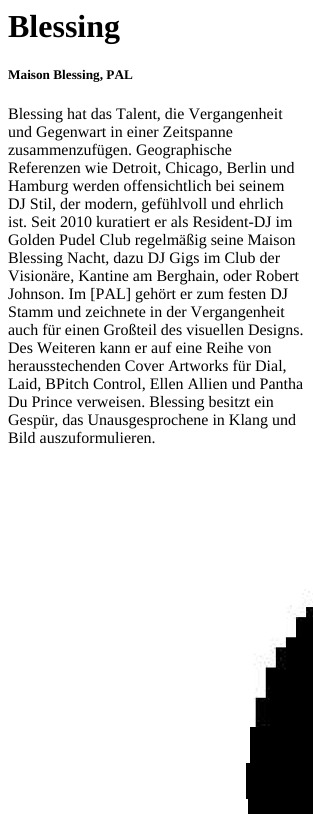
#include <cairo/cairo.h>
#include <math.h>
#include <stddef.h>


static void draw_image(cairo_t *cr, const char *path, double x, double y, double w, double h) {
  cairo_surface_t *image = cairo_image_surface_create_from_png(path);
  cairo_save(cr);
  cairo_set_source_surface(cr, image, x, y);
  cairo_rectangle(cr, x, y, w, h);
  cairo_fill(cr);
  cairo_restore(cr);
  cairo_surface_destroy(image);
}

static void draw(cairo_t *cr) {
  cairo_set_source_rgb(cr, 1, 1, 1);
  cairo_paint(cr);
  draw_image(cr, "images/1.png", 246, 589, 67, 225);
  cairo_select_font_face(cr, "Liberation Serif", CAIRO_FONT_SLANT_NORMAL, CAIRO_FONT_WEIGHT_BOLD);
  cairo_set_font_size(cr, 32);
  cairo_set_source_rgb(cr, 0, 0, 0);
  cairo_move_to(cr, 8, 37);
  cairo_show_text(cr, "Blessing");
  cairo_set_font_size(cr, 13.25);
  cairo_move_to(cr, 8, 79);
  cairo_show_text(cr, "Maison Blessing, PAL");
  cairo_select_font_face(cr, "Liberation Serif", CAIRO_FONT_SLANT_NORMAL, CAIRO_FONT_WEIGHT_NORMAL);
  cairo_set_font_size(cr, 16);
  cairo_move_to(cr, 8, 119);
  cairo_show_text(cr, "Blessing hat das Talent, die Vergangenheit");
  cairo_move_to(cr, 8, 137);
  cairo_show_text(cr, "und Gegenwart in einer Zeitspanne");
  cairo_move_to(cr, 8, 155);
  cairo_show_text(cr, "zusammenzufügen. Geographische");
  cairo_move_to(cr, 8, 173);
  cairo_show_text(cr, "Referenzen wie Detroit, Chicago, Berlin und");
  cairo_move_to(cr, 8, 191);
  cairo_show_text(cr, "Hamburg werden offensichtlich bei seinem");
  cairo_move_to(cr, 8, 209);
  cairo_show_text(cr, "DJ Stil, der modern, gefühlvoll und ehrlich");
  cairo_move_to(cr, 8, 227);
  cairo_show_text(cr, "ist. Seit 2010 kuratiert er als Resident-DJ im");
  cairo_move_to(cr, 8, 245);
  cairo_show_text(cr, "Golden Pudel Club regelmäßig seine Maison");
  cairo_move_to(cr, 8, 263);
  cairo_show_text(cr, "Blessing Nacht, dazu DJ Gigs im Club der");
  cairo_move_to(cr, 8, 281);
  cairo_show_text(cr, "Visionäre, Kantine am Berghain, oder Robert");
  cairo_move_to(cr, 8, 299);
  cairo_show_text(cr, "Johnson. Im [PAL] gehört er zum festen DJ");
  cairo_move_to(cr, 8, 317);
  cairo_show_text(cr, "Stamm und zeichnete in der Vergangenheit");
  cairo_move_to(cr, 8, 335);
  cairo_show_text(cr, "auch für einen Großteil des visuellen Designs.");
  cairo_move_to(cr, 8, 353);
  cairo_show_text(cr, "Des Weiteren kann er auf eine Reihe von");
  cairo_move_to(cr, 8, 371);
  cairo_show_text(cr, "herausstechenden Cover Artworks für Dial,");
  cairo_move_to(cr, 8, 389);
  cairo_show_text(cr, "Laid, BPitch Control, Ellen Allien und Pantha");
  cairo_move_to(cr, 8, 407);
  cairo_show_text(cr, "Du Prince verweisen. Blessing besitzt ein");
  cairo_move_to(cr, 8, 425);
  cairo_show_text(cr, "Gespür, das Unausgesprochene in Klang und");
  cairo_move_to(cr, 8, 443);
  cairo_show_text(cr, "Bild auszuformulieren.");
}

int main(void) {
  cairo_surface_t *surface = cairo_image_surface_create(CAIRO_FORMAT_RGB24, 313, 814);
  cairo_t *cr = cairo_create(surface);
  cairo_font_options_t *options = cairo_font_options_create();
  cairo_font_options_set_hint_metrics(options, CAIRO_HINT_METRICS_OFF);
  cairo_font_options_set_hint_style(options, CAIRO_HINT_STYLE_NONE);
  cairo_set_font_options(cr, options);
  cairo_set_miter_limit(cr, 4);
  draw(cr);
  cairo_surface_write_to_png(surface, "out.png");
  cairo_font_options_destroy(options);
  cairo_destroy(cr);
  cairo_surface_destroy(surface);
  return 0;
}
